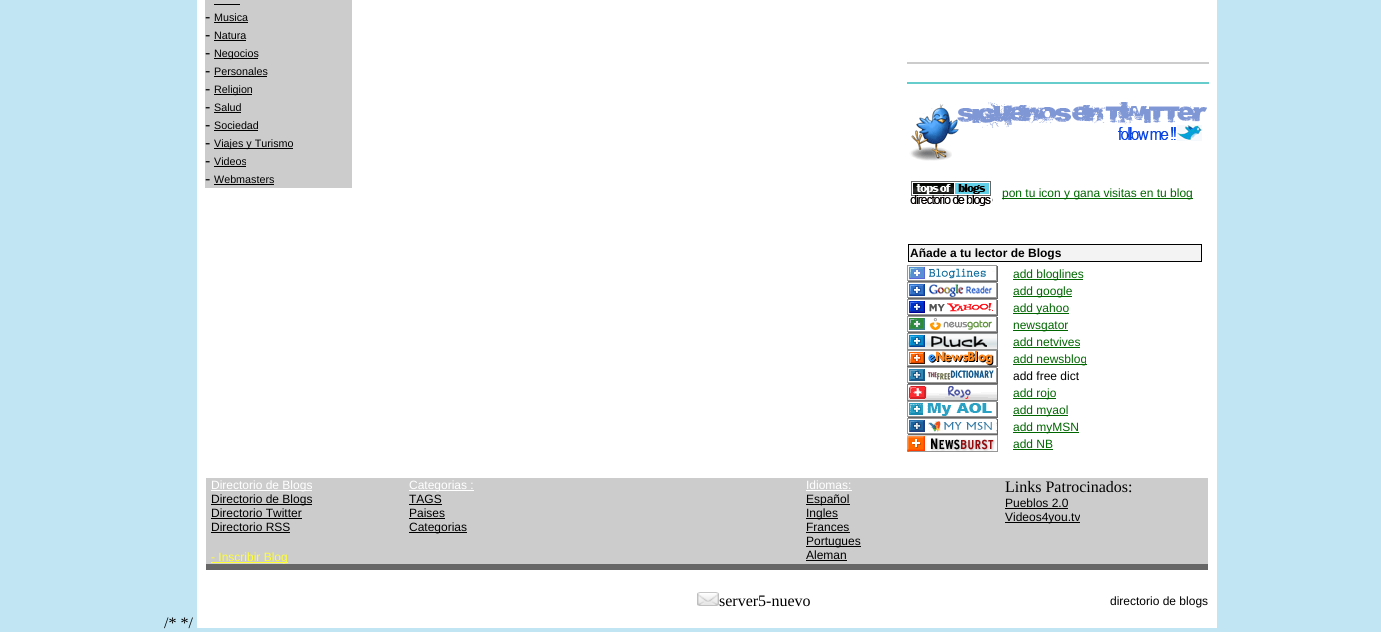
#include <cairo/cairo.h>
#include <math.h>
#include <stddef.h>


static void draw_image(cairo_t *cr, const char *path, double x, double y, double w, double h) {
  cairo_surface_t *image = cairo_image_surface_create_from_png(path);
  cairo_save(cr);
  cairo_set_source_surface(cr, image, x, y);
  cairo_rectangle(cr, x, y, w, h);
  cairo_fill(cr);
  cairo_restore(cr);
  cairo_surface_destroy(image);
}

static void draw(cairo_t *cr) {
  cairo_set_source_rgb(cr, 193 / 255.0, 229 / 255.0, 243 / 255.0);
  cairo_paint(cr);
  cairo_set_source_rgb(cr, 1, 1, 1);
  cairo_rectangle(cr, 197, 0, 1020, 628);
  cairo_fill(cr);
  cairo_set_source_rgb(cr, 204 / 255.0, 204 / 255.0, 204 / 255.0);
  cairo_rectangle(cr, 205, 0, 147, 188);
  cairo_fill(cr);
  cairo_set_source_rgb(cr, 0, 0, 0);
  cairo_rectangle(cr, 214, 4, 26, 1);
  cairo_fill(cr);
  cairo_rectangle(cr, 214, 22, 34, 1);
  cairo_fill(cr);
  cairo_rectangle(cr, 214, 40, 32, 1);
  cairo_fill(cr);
  cairo_rectangle(cr, 214, 58, 44, 1);
  cairo_fill(cr);
  cairo_rectangle(cr, 214, 76, 53, 1);
  cairo_fill(cr);
  cairo_rectangle(cr, 214, 94, 38, 1);
  cairo_fill(cr);
  cairo_rectangle(cr, 214, 112, 27, 1);
  cairo_fill(cr);
  cairo_rectangle(cr, 214, 130, 44, 1);
  cairo_fill(cr);
  cairo_rectangle(cr, 214, 148, 79, 1);
  cairo_fill(cr);
  cairo_rectangle(cr, 214, 166, 32, 1);
  cairo_fill(cr);
  cairo_rectangle(cr, 214, 184, 60, 1);
  cairo_fill(cr);
  cairo_set_source_rgb(cr, 204 / 255.0, 204 / 255.0, 204 / 255.0);
  cairo_rectangle(cr, 907, 62, 302, 2);
  cairo_fill(cr);
  cairo_set_source_rgb(cr, 102 / 255.0, 204 / 255.0, 204 / 255.0);
  cairo_rectangle(cr, 907, 82, 302, 2);
  cairo_fill(cr);
  draw_image(cr, "images/1.png", 909, 102, 298, 59);
  draw_image(cr, "images/2.png", 910, 181, 83, 25);
  cairo_set_source_rgb(cr, 0, 102 / 255.0, 0);
  cairo_rectangle(cr, 1002, 198, 191, 1);
  cairo_fill(cr);
  cairo_set_source_rgb(cr, 0, 0, 0);
  cairo_rectangle(cr, 908, 244, 294, 18);
  cairo_fill(cr);
  cairo_set_source_rgb(cr, 243 / 255.0, 243 / 255.0, 243 / 255.0);
  cairo_rectangle(cr, 909, 245, 292, 16);
  cairo_fill(cr);
  draw_image(cr, "images/3.png", 907, 265, 91, 17);
  cairo_set_source_rgb(cr, 0, 102 / 255.0, 0);
  cairo_rectangle(cr, 1013, 279, 70, 1);
  cairo_fill(cr);
  draw_image(cr, "images/4.png", 907, 282, 91, 17);
  cairo_rectangle(cr, 1013, 296, 59, 1);
  cairo_fill(cr);
  draw_image(cr, "images/5.png", 907, 299, 91, 17);
  cairo_rectangle(cr, 1013, 313, 56, 1);
  cairo_fill(cr);
  draw_image(cr, "images/6.png", 907, 316, 91, 17);
  cairo_rectangle(cr, 1013, 330, 55, 1);
  cairo_fill(cr);
  draw_image(cr, "images/7.png", 907, 333, 91, 17);
  cairo_rectangle(cr, 1013, 347, 67, 1);
  cairo_fill(cr);
  draw_image(cr, "images/8.png", 907, 350, 91, 17);
  cairo_rectangle(cr, 1013, 364, 74, 1);
  cairo_fill(cr);
  draw_image(cr, "images/9.png", 907, 367, 91, 17);
  draw_image(cr, "images/10.png", 907, 384, 91, 17);
  cairo_rectangle(cr, 1013, 398, 43, 1);
  cairo_fill(cr);
  draw_image(cr, "images/11.png", 907, 401, 91, 17);
  cairo_rectangle(cr, 1013, 415, 55, 1);
  cairo_fill(cr);
  draw_image(cr, "images/12.png", 907, 418, 91, 17);
  cairo_rectangle(cr, 1013, 432, 66, 1);
  cairo_fill(cr);
  draw_image(cr, "images/13.png", 907, 435, 91, 17);
  cairo_rectangle(cr, 1013, 449, 40, 1);
  cairo_fill(cr);
  cairo_set_source_rgb(cr, 204 / 255.0, 204 / 255.0, 204 / 255.0);
  cairo_rectangle(cr, 206, 478, 1002, 86);
  cairo_fill(cr);
  cairo_set_source_rgb(cr, 1, 1, 1);
  cairo_rectangle(cr, 211, 490, 101, 1);
  cairo_fill(cr);
  cairo_set_source_rgb(cr, 0, 0, 0);
  cairo_rectangle(cr, 211, 504, 101, 1);
  cairo_fill(cr);
  cairo_rectangle(cr, 211, 518, 91, 1);
  cairo_fill(cr);
  cairo_rectangle(cr, 211, 532, 79, 1);
  cairo_fill(cr);
  cairo_set_source_rgb(cr, 1, 1, 51 / 255.0);
  cairo_rectangle(cr, 211, 562, 77, 1);
  cairo_fill(cr);
  cairo_set_source_rgb(cr, 1, 1, 1);
  cairo_rectangle(cr, 409, 490, 65, 1);
  cairo_fill(cr);
  cairo_set_source_rgb(cr, 0, 0, 0);
  cairo_rectangle(cr, 409, 504, 33, 1);
  cairo_fill(cr);
  cairo_rectangle(cr, 409, 518, 36, 1);
  cairo_fill(cr);
  cairo_rectangle(cr, 409, 532, 58, 1);
  cairo_fill(cr);
  cairo_set_source_rgb(cr, 1, 1, 1);
  cairo_rectangle(cr, 806, 490, 46, 1);
  cairo_fill(cr);
  cairo_set_source_rgb(cr, 0, 0, 0);
  cairo_rectangle(cr, 806, 504, 44, 1);
  cairo_fill(cr);
  cairo_rectangle(cr, 806, 518, 32, 1);
  cairo_fill(cr);
  cairo_rectangle(cr, 806, 532, 44, 1);
  cairo_fill(cr);
  cairo_rectangle(cr, 806, 546, 55, 1);
  cairo_fill(cr);
  cairo_rectangle(cr, 806, 560, 41, 1);
  cairo_fill(cr);
  cairo_rectangle(cr, 1005, 508, 63, 1);
  cairo_fill(cr);
  cairo_rectangle(cr, 1005, 522, 75, 1);
  cairo_fill(cr);
  cairo_set_source_rgb(cr, 102 / 255.0, 102 / 255.0, 102 / 255.0);
  cairo_rectangle(cr, 206, 564, 1002, 6);
  cairo_fill(cr);
  draw_image(cr, "images/14.png", 697, 592, 22, 14);
  cairo_select_font_face(cr, "Liberation Sans", CAIRO_FONT_SLANT_NORMAL, CAIRO_FONT_WEIGHT_NORMAL);
  cairo_set_font_size(cr, 16);
  cairo_set_source_rgb(cr, 0, 0, 0);
  cairo_move_to(cr, 205, 22);
  cairo_show_text(cr, "-");
  cairo_set_font_size(cr, 10.75);
  cairo_move_to(cr, 214, 21);
  cairo_show_text(cr, "Musica");
  cairo_set_font_size(cr, 16);
  cairo_move_to(cr, 205, 40);
  cairo_show_text(cr, "-");
  cairo_set_font_size(cr, 10.75);
  cairo_move_to(cr, 214, 39);
  cairo_show_text(cr, "Natura");
  cairo_set_font_size(cr, 16);
  cairo_move_to(cr, 205, 58);
  cairo_show_text(cr, "-");
  cairo_set_font_size(cr, 10.75);
  cairo_move_to(cr, 214, 57);
  cairo_show_text(cr, "Negocios");
  cairo_set_font_size(cr, 16);
  cairo_move_to(cr, 205, 76);
  cairo_show_text(cr, "-");
  cairo_set_font_size(cr, 10.75);
  cairo_move_to(cr, 214, 75);
  cairo_show_text(cr, "Personales");
  cairo_set_font_size(cr, 16);
  cairo_move_to(cr, 205, 94);
  cairo_show_text(cr, "-");
  cairo_set_font_size(cr, 10.75);
  cairo_move_to(cr, 214, 93);
  cairo_show_text(cr, "Religion");
  cairo_set_font_size(cr, 16);
  cairo_move_to(cr, 205, 112);
  cairo_show_text(cr, "-");
  cairo_set_font_size(cr, 10.75);
  cairo_move_to(cr, 214, 111);
  cairo_show_text(cr, "Salud");
  cairo_set_font_size(cr, 16);
  cairo_move_to(cr, 205, 130);
  cairo_show_text(cr, "-");
  cairo_set_font_size(cr, 10.75);
  cairo_move_to(cr, 214, 129);
  cairo_show_text(cr, "Sociedad");
  cairo_set_font_size(cr, 16);
  cairo_move_to(cr, 205, 148);
  cairo_show_text(cr, "-");
  cairo_set_font_size(cr, 10.75);
  cairo_move_to(cr, 214, 147);
  cairo_show_text(cr, "Viajes y Turismo");
  cairo_set_font_size(cr, 16);
  cairo_move_to(cr, 205, 166);
  cairo_show_text(cr, "-");
  cairo_set_font_size(cr, 10.75);
  cairo_move_to(cr, 214, 165);
  cairo_show_text(cr, "Videos");
  cairo_set_font_size(cr, 16);
  cairo_move_to(cr, 205, 184);
  cairo_show_text(cr, "-");
  cairo_set_font_size(cr, 10.75);
  cairo_move_to(cr, 214, 183);
  cairo_show_text(cr, "Webmasters");
  cairo_set_font_size(cr, 12);
  cairo_set_source_rgb(cr, 0, 102 / 255.0, 0);
  cairo_move_to(cr, 1002, 197);
  cairo_show_text(cr, "pon tu icon y gana visitas en tu blog");
  cairo_select_font_face(cr, "Liberation Sans", CAIRO_FONT_SLANT_NORMAL, CAIRO_FONT_WEIGHT_BOLD);
  cairo_set_source_rgb(cr, 0, 0, 0);
  cairo_move_to(cr, 910, 257);
  cairo_show_text(cr, "Añade a tu lector de Blogs");
  cairo_select_font_face(cr, "Liberation Sans", CAIRO_FONT_SLANT_NORMAL, CAIRO_FONT_WEIGHT_NORMAL);
  cairo_set_source_rgb(cr, 0, 102 / 255.0, 0);
  cairo_move_to(cr, 1013, 278);
  cairo_show_text(cr, "add bloglines");
  cairo_move_to(cr, 1013, 295);
  cairo_show_text(cr, "add google");
  cairo_move_to(cr, 1013, 312);
  cairo_show_text(cr, "add yahoo");
  cairo_move_to(cr, 1013, 329);
  cairo_show_text(cr, "newsgator");
  cairo_move_to(cr, 1013, 346);
  cairo_show_text(cr, "add netvives");
  cairo_move_to(cr, 1013, 363);
  cairo_show_text(cr, "add newsblog");
  cairo_set_source_rgb(cr, 0, 0, 0);
  cairo_move_to(cr, 1013, 380);
  cairo_show_text(cr, "add free dict");
  cairo_set_source_rgb(cr, 0, 102 / 255.0, 0);
  cairo_move_to(cr, 1013, 397);
  cairo_show_text(cr, "add rojo");
  cairo_move_to(cr, 1013, 414);
  cairo_show_text(cr, "add myaol");
  cairo_move_to(cr, 1013, 431);
  cairo_show_text(cr, "add myMSN");
  cairo_move_to(cr, 1013, 448);
  cairo_show_text(cr, "add NB");
  cairo_set_source_rgb(cr, 1, 1, 1);
  cairo_move_to(cr, 211, 489);
  cairo_show_text(cr, "Directorio de Blogs");
  cairo_set_source_rgb(cr, 0, 0, 0);
  cairo_move_to(cr, 211, 503);
  cairo_show_text(cr, "Directorio de Blogs");
  cairo_move_to(cr, 211, 517);
  cairo_show_text(cr, "Directorio Twitter");
  cairo_move_to(cr, 211, 531);
  cairo_show_text(cr, "Directorio RSS");
  cairo_set_source_rgb(cr, 1, 1, 51 / 255.0);
  cairo_move_to(cr, 211, 561);
  cairo_show_text(cr, "- Inscribir Blog");
  cairo_set_source_rgb(cr, 1, 1, 1);
  cairo_move_to(cr, 409, 489);
  cairo_show_text(cr, "Categorias :");
  cairo_set_source_rgb(cr, 0, 0, 0);
  cairo_move_to(cr, 409, 503);
  cairo_show_text(cr, "TAGS");
  cairo_move_to(cr, 409, 517);
  cairo_show_text(cr, "Paises");
  cairo_move_to(cr, 409, 531);
  cairo_show_text(cr, "Categorias");
  cairo_set_source_rgb(cr, 1, 1, 1);
  cairo_move_to(cr, 806, 489);
  cairo_show_text(cr, "Idiomas:");
  cairo_set_source_rgb(cr, 0, 0, 0);
  cairo_move_to(cr, 806, 503);
  cairo_show_text(cr, "Español");
  cairo_move_to(cr, 806, 517);
  cairo_show_text(cr, "Ingles");
  cairo_move_to(cr, 806, 531);
  cairo_show_text(cr, "Frances");
  cairo_move_to(cr, 806, 545);
  cairo_show_text(cr, "Portugues");
  cairo_move_to(cr, 806, 559);
  cairo_show_text(cr, "Aleman");
  cairo_select_font_face(cr, "Liberation Serif", CAIRO_FONT_SLANT_NORMAL, CAIRO_FONT_WEIGHT_NORMAL);
  cairo_set_font_size(cr, 16);
  cairo_move_to(cr, 1005, 492);
  cairo_show_text(cr, "Links Patrocinados:");
  cairo_select_font_face(cr, "Liberation Sans", CAIRO_FONT_SLANT_NORMAL, CAIRO_FONT_WEIGHT_NORMAL);
  cairo_set_font_size(cr, 12);
  cairo_move_to(cr, 1005, 507);
  cairo_show_text(cr, "Pueblos 2.0");
  cairo_move_to(cr, 1005, 521);
  cairo_show_text(cr, "Videos4you.tv");
  cairo_select_font_face(cr, "Liberation Serif", CAIRO_FONT_SLANT_NORMAL, CAIRO_FONT_WEIGHT_NORMAL);
  cairo_set_font_size(cr, 16);
  cairo_move_to(cr, 719, 606);
  cairo_show_text(cr, "server5-nuevo");
  cairo_select_font_face(cr, "Liberation Sans", CAIRO_FONT_SLANT_NORMAL, CAIRO_FONT_WEIGHT_NORMAL);
  cairo_set_font_size(cr, 12);
  cairo_move_to(cr, 1110, 605);
  cairo_show_text(cr, "directorio de blogs");
  cairo_select_font_face(cr, "Liberation Serif", CAIRO_FONT_SLANT_NORMAL, CAIRO_FONT_WEIGHT_NORMAL);
  cairo_set_font_size(cr, 16);
  cairo_move_to(cr, 164, 628);
  cairo_show_text(cr, "/* */");
}

int main(void) {
  cairo_surface_t *surface = cairo_image_surface_create(CAIRO_FORMAT_RGB24, 1381, 632);
  cairo_t *cr = cairo_create(surface);
  cairo_font_options_t *options = cairo_font_options_create();
  cairo_font_options_set_hint_metrics(options, CAIRO_HINT_METRICS_OFF);
  cairo_font_options_set_hint_style(options, CAIRO_HINT_STYLE_NONE);
  cairo_set_font_options(cr, options);
  cairo_set_miter_limit(cr, 4);
  draw(cr);
  cairo_surface_write_to_png(surface, "out.png");
  cairo_font_options_destroy(options);
  cairo_destroy(cr);
  cairo_surface_destroy(surface);
  return 0;
}
